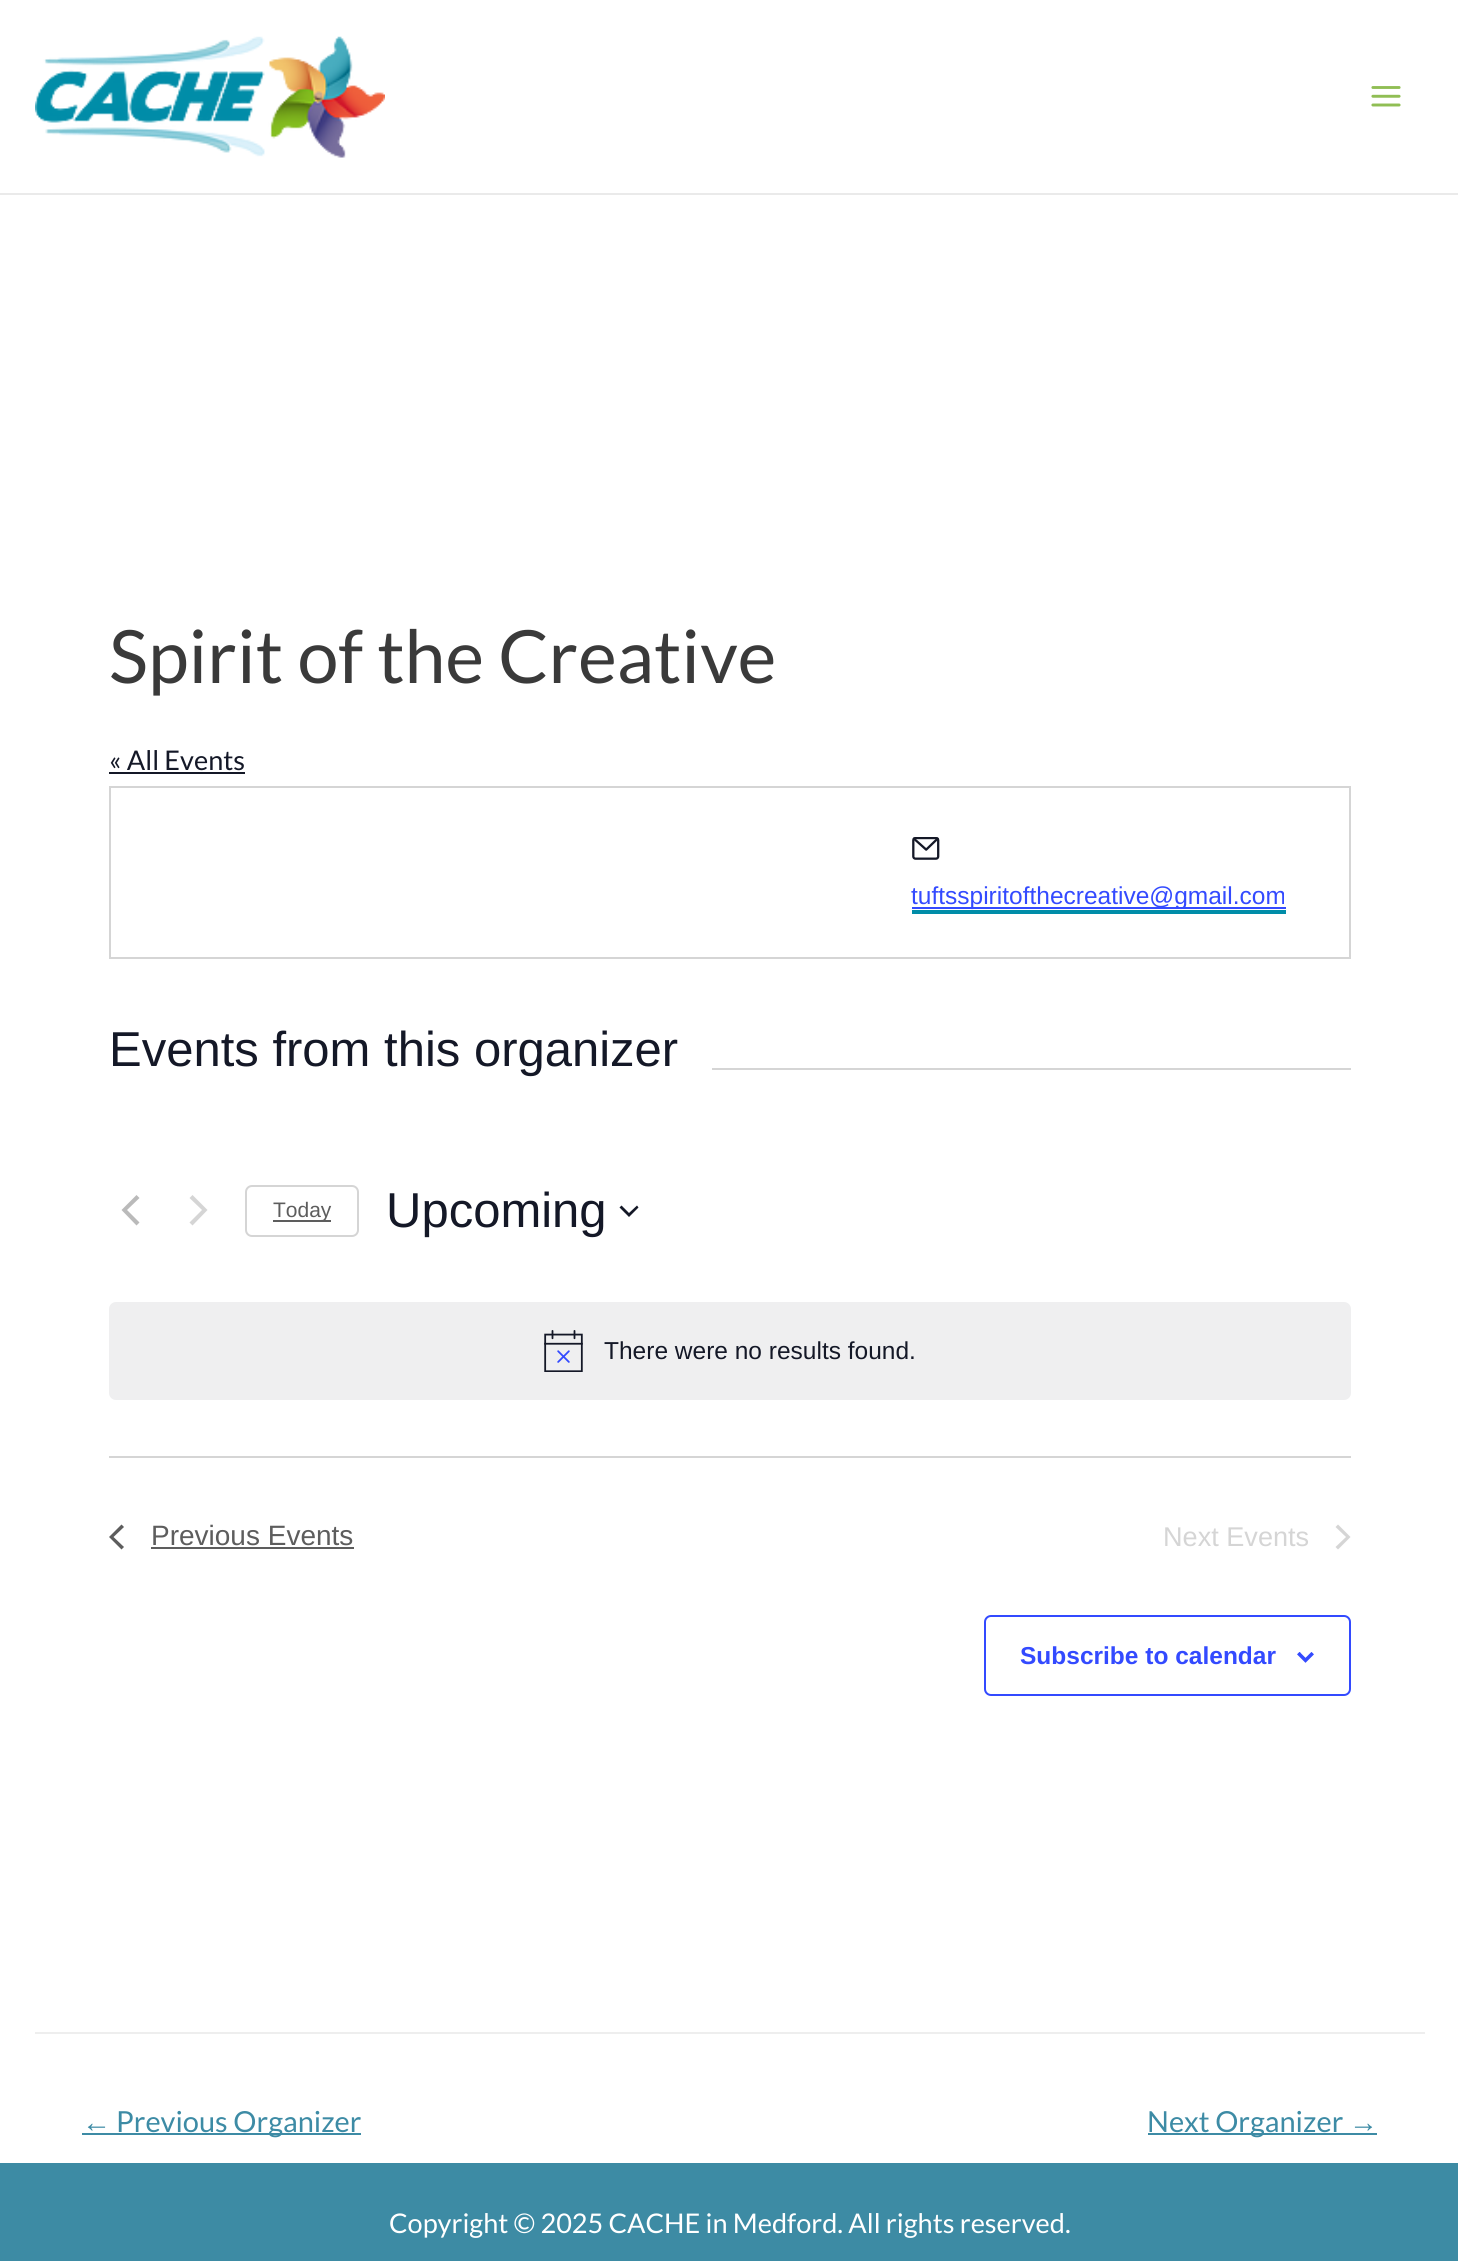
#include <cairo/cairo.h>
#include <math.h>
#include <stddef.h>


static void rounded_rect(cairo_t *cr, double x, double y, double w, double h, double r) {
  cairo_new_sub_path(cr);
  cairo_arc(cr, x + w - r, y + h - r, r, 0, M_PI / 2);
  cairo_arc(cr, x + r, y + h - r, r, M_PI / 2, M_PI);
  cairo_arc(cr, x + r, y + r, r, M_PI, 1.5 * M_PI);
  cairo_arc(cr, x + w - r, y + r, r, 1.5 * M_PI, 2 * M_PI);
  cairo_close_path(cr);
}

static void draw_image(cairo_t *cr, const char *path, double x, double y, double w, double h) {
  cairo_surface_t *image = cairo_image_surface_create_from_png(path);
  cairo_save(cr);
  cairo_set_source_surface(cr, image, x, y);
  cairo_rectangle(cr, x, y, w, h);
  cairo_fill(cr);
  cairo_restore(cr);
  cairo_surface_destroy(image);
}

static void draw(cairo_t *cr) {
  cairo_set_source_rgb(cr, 1, 1, 1);
  cairo_paint(cr);
  cairo_set_source_rgb(cr, 234 / 255.0, 234 / 255.0, 234 / 255.0);
  cairo_rectangle(cr, 0, 193, 1458, 2);
  cairo_fill(cr);
  draw_image(cr, "images/1.png", 35, 36, 350, 122);
  draw_image(cr, "images/2.png", 1371, 86, 30, 21);
  cairo_set_source_rgb(cr, 20 / 255.0, 24 / 255.0, 39 / 255.0);
  cairo_rectangle(cr, 109, 772, 136, 2);
  cairo_fill(cr);
  cairo_rectangle(cr, 110, 787, 1240, 171);
  cairo_set_source_rgb(cr, 213 / 255.0, 213 / 255.0, 213 / 255.0);
  cairo_stroke(cr);
  draw_image(cr, "images/3.png", 912, 837, 28, 23);
  cairo_set_source_rgb(cr, 0, 141 / 255.0, 168 / 255.0);
  cairo_rectangle(cr, 912, 910, 374, 4);
  cairo_fill(cr);
  cairo_set_source_rgb(cr, 51 / 255.0, 74 / 255.0, 1);
  cairo_rectangle(cr, 912, 907, 374, 2);
  cairo_fill(cr);
  cairo_set_source_rgb(cr, 213 / 255.0, 213 / 255.0, 213 / 255.0);
  cairo_rectangle(cr, 712, 1068, 639, 2);
  cairo_fill(cr);
  cairo_set_source_rgb(cr, 186 / 255.0, 186 / 255.0, 186 / 255.0);
  cairo_new_path(cr);
  cairo_move_to(cr, 139.5, 1222.5);
  cairo_line_to(cr, 136.5, 1225.5);
  cairo_line_to(cr, 121.5, 1210);
  cairo_line_to(cr, 136.5, 1195);
  cairo_line_to(cr, 139.5, 1198);
  cairo_line_to(cr, 127, 1210);
  cairo_close_path(cr);
  cairo_fill(cr);
  cairo_set_source_rgb(cr, 213 / 255.0, 213 / 255.0, 213 / 255.0);
  cairo_new_path(cr);
  cairo_move_to(cr, 189.5, 1198);
  cairo_line_to(cr, 192.5, 1195);
  cairo_line_to(cr, 207.5, 1210);
  cairo_line_to(cr, 192.5, 1225.5);
  cairo_line_to(cr, 189.5, 1222.5);
  cairo_line_to(cr, 202, 1210);
  cairo_close_path(cr);
  cairo_fill(cr);
  rounded_rect(cr, 246, 1186, 112, 50, 6);
  cairo_stroke(cr);
  cairo_set_source_rgb(cr, 93 / 255.0, 93 / 255.0, 93 / 255.0);
  cairo_rectangle(cr, 273, 1220, 58, 2);
  cairo_fill(cr);
  cairo_set_source_rgb(cr, 20 / 255.0, 24 / 255.0, 39 / 255.0);
  cairo_set_fill_rule(cr, CAIRO_FILL_RULE_EVEN_ODD);
  cairo_new_path(cr);
  cairo_move_to(cr, 621.5, 1205.5);
  cairo_line_to(cr, 629, 1213);
  cairo_line_to(cr, 637, 1205.5);
  cairo_line_to(cr, 638.5, 1207.5);
  cairo_line_to(cr, 629, 1217);
  cairo_line_to(cr, 619.5, 1207.5);
  cairo_close_path(cr);
  cairo_fill(cr);
  cairo_set_source_rgb(cr, 239 / 255.0, 239 / 255.0, 240 / 255.0);
  rounded_rect(cr, 109, 1302, 1242, 98, 7);
  cairo_fill(cr);
  draw_image(cr, "images/4.png", 544, 1330, 39, 42);
  cairo_set_source_rgb(cr, 213 / 255.0, 213 / 255.0, 213 / 255.0);
  cairo_rectangle(cr, 109, 1456, 1242, 2);
  cairo_fill(cr);
  cairo_set_source_rgb(cr, 93 / 255.0, 93 / 255.0, 93 / 255.0);
  cairo_set_fill_rule(cr, CAIRO_FILL_RULE_WINDING);
  cairo_new_path(cr);
  cairo_move_to(cr, 124, 1547);
  cairo_line_to(cr, 121.5, 1549.5);
  cairo_line_to(cr, 109, 1537);
  cairo_line_to(cr, 121.5, 1524.5);
  cairo_line_to(cr, 124, 1527);
  cairo_line_to(cr, 113.5, 1537);
  cairo_close_path(cr);
  cairo_fill(cr);
  cairo_rectangle(cr, 151, 1547, 203, 2);
  cairo_fill(cr);
  cairo_set_source_rgb(cr, 213 / 255.0, 213 / 255.0, 213 / 255.0);
  cairo_new_path(cr);
  cairo_move_to(cr, 1335.5, 1527);
  cairo_line_to(cr, 1338, 1524.5);
  cairo_line_to(cr, 1350.5, 1537);
  cairo_line_to(cr, 1338, 1549.5);
  cairo_line_to(cr, 1335.5, 1547);
  cairo_line_to(cr, 1346, 1537);
  cairo_close_path(cr);
  cairo_fill(cr);
  rounded_rect(cr, 985, 1616, 365, 79, 6);
  cairo_set_source_rgb(cr, 51 / 255.0, 74 / 255.0, 1);
  cairo_stroke(cr);
  draw_image(cr, "images/5.png", 1297, 1652, 17, 11);
  cairo_set_source_rgb(cr, 238 / 255.0, 238 / 255.0, 238 / 255.0);
  cairo_rectangle(cr, 35, 2032, 1390, 2);
  cairo_fill(cr);
  cairo_set_source_rgb(cr, 61 / 255.0, 139 / 255.0, 165 / 255.0);
  cairo_rectangle(cr, 82, 2133, 279, 2);
  cairo_fill(cr);
  cairo_rectangle(cr, 1148, 2133, 229, 2);
  cairo_fill(cr);
  cairo_set_source_rgb(cr, 61 / 255.0, 139 / 255.0, 164 / 255.0);
  cairo_rectangle(cr, 0, 2163, 1458, 98);
  cairo_fill(cr);
  cairo_select_font_face(cr, "Lato", CAIRO_FONT_SLANT_NORMAL, CAIRO_FONT_WEIGHT_NORMAL);
  cairo_set_font_size(cr, 73.5);
  cairo_set_source_rgb(cr, 58 / 255.0, 58 / 255.0, 58 / 255.0);
  cairo_move_to(cr, 109, 683);
  cairo_show_text(cr, "Spirit of the Creative");
  cairo_set_font_size(cr, 27.1);
  cairo_set_source_rgb(cr, 20 / 255.0, 24 / 255.0, 39 / 255.0);
  cairo_move_to(cr, 109, 770);
  cairo_show_text(cr, "« All Events");
  cairo_select_font_face(cr, "Liberation Sans", CAIRO_FONT_SLANT_NORMAL, CAIRO_FONT_WEIGHT_NORMAL);
  cairo_set_font_size(cr, 24.5);
  cairo_set_source_rgb(cr, 51 / 255.0, 74 / 255.0, 1);
  cairo_move_to(cr, 911, 904);
  cairo_show_text(cr, "tuftsspiritofthecreative@gmail.com");
  cairo_set_font_size(cr, 49);
  cairo_set_source_rgb(cr, 20 / 255.0, 24 / 255.0, 39 / 255.0);
  cairo_move_to(cr, 109, 1066);
  cairo_show_text(cr, "Events from this organizer");
  cairo_set_font_size(cr, 21);
  cairo_set_source_rgb(cr, 93 / 255.0, 93 / 255.0, 93 / 255.0);
  cairo_move_to(cr, 273, 1217);
  cairo_show_text(cr, "Today");
  cairo_set_font_size(cr, 49);
  cairo_set_source_rgb(cr, 20 / 255.0, 24 / 255.0, 39 / 255.0);
  cairo_move_to(cr, 386, 1227);
  cairo_show_text(cr, "Upcoming");
  cairo_set_font_size(cr, 24.5);
  cairo_move_to(cr, 604, 1359);
  cairo_show_text(cr, "There were no results found.");
  cairo_set_font_size(cr, 28);
  cairo_set_source_rgb(cr, 93 / 255.0, 93 / 255.0, 93 / 255.0);
  cairo_move_to(cr, 151, 1545);
  cairo_show_text(cr, "Previous Events");
  cairo_set_font_size(cr, 27.1);
  cairo_set_source_rgb(cr, 213 / 255.0, 213 / 255.0, 213 / 255.0);
  cairo_move_to(cr, 1163, 1546);
  cairo_show_text(cr, "Next Events");
  cairo_select_font_face(cr, "Liberation Sans", CAIRO_FONT_SLANT_NORMAL, CAIRO_FONT_WEIGHT_BOLD);
  cairo_set_font_size(cr, 24.5);
  cairo_set_source_rgb(cr, 51 / 255.0, 74 / 255.0, 1);
  cairo_move_to(cr, 1020, 1664);
  cairo_show_text(cr, "Subscribe to calendar");
  cairo_select_font_face(cr, "Liberation Sans", CAIRO_FONT_SLANT_NORMAL, CAIRO_FONT_WEIGHT_NORMAL);
  cairo_set_font_size(cr, 29);
  cairo_set_source_rgb(cr, 61 / 255.0, 139 / 255.0, 165 / 255.0);
  cairo_move_to(cr, 82, 2132);
  cairo_show_text(cr, "←");
  cairo_select_font_face(cr, "Lato", CAIRO_FONT_SLANT_NORMAL, CAIRO_FONT_WEIGHT_NORMAL);
  cairo_move_to(cr, 116, 2132);
  cairo_show_text(cr, "Previous Organizer");
  cairo_move_to(cr, 1147, 2132);
  cairo_show_text(cr, "Next Organizer");
  cairo_select_font_face(cr, "Liberation Sans", CAIRO_FONT_SLANT_NORMAL, CAIRO_FONT_WEIGHT_NORMAL);
  cairo_move_to(cr, 1349, 2132);
  cairo_show_text(cr, "→");
  cairo_select_font_face(cr, "Lato", CAIRO_FONT_SLANT_NORMAL, CAIRO_FONT_WEIGHT_NORMAL);
  cairo_set_font_size(cr, 27.1);
  cairo_set_source_rgb(cr, 1, 1, 1);
  cairo_move_to(cr, 389, 2233);
  cairo_show_text(cr, "Copyright © 2025 CACHE in Medford. All rights reserved.");
}

int main(void) {
  cairo_surface_t *surface = cairo_image_surface_create(CAIRO_FORMAT_RGB24, 1458, 2261);
  cairo_t *cr = cairo_create(surface);
  cairo_font_options_t *options = cairo_font_options_create();
  cairo_font_options_set_hint_metrics(options, CAIRO_HINT_METRICS_OFF);
  cairo_font_options_set_hint_style(options, CAIRO_HINT_STYLE_NONE);
  cairo_set_font_options(cr, options);
  cairo_set_miter_limit(cr, 4);
  draw(cr);
  cairo_surface_write_to_png(surface, "out.png");
  cairo_font_options_destroy(options);
  cairo_destroy(cr);
  cairo_surface_destroy(surface);
  return 0;
}
